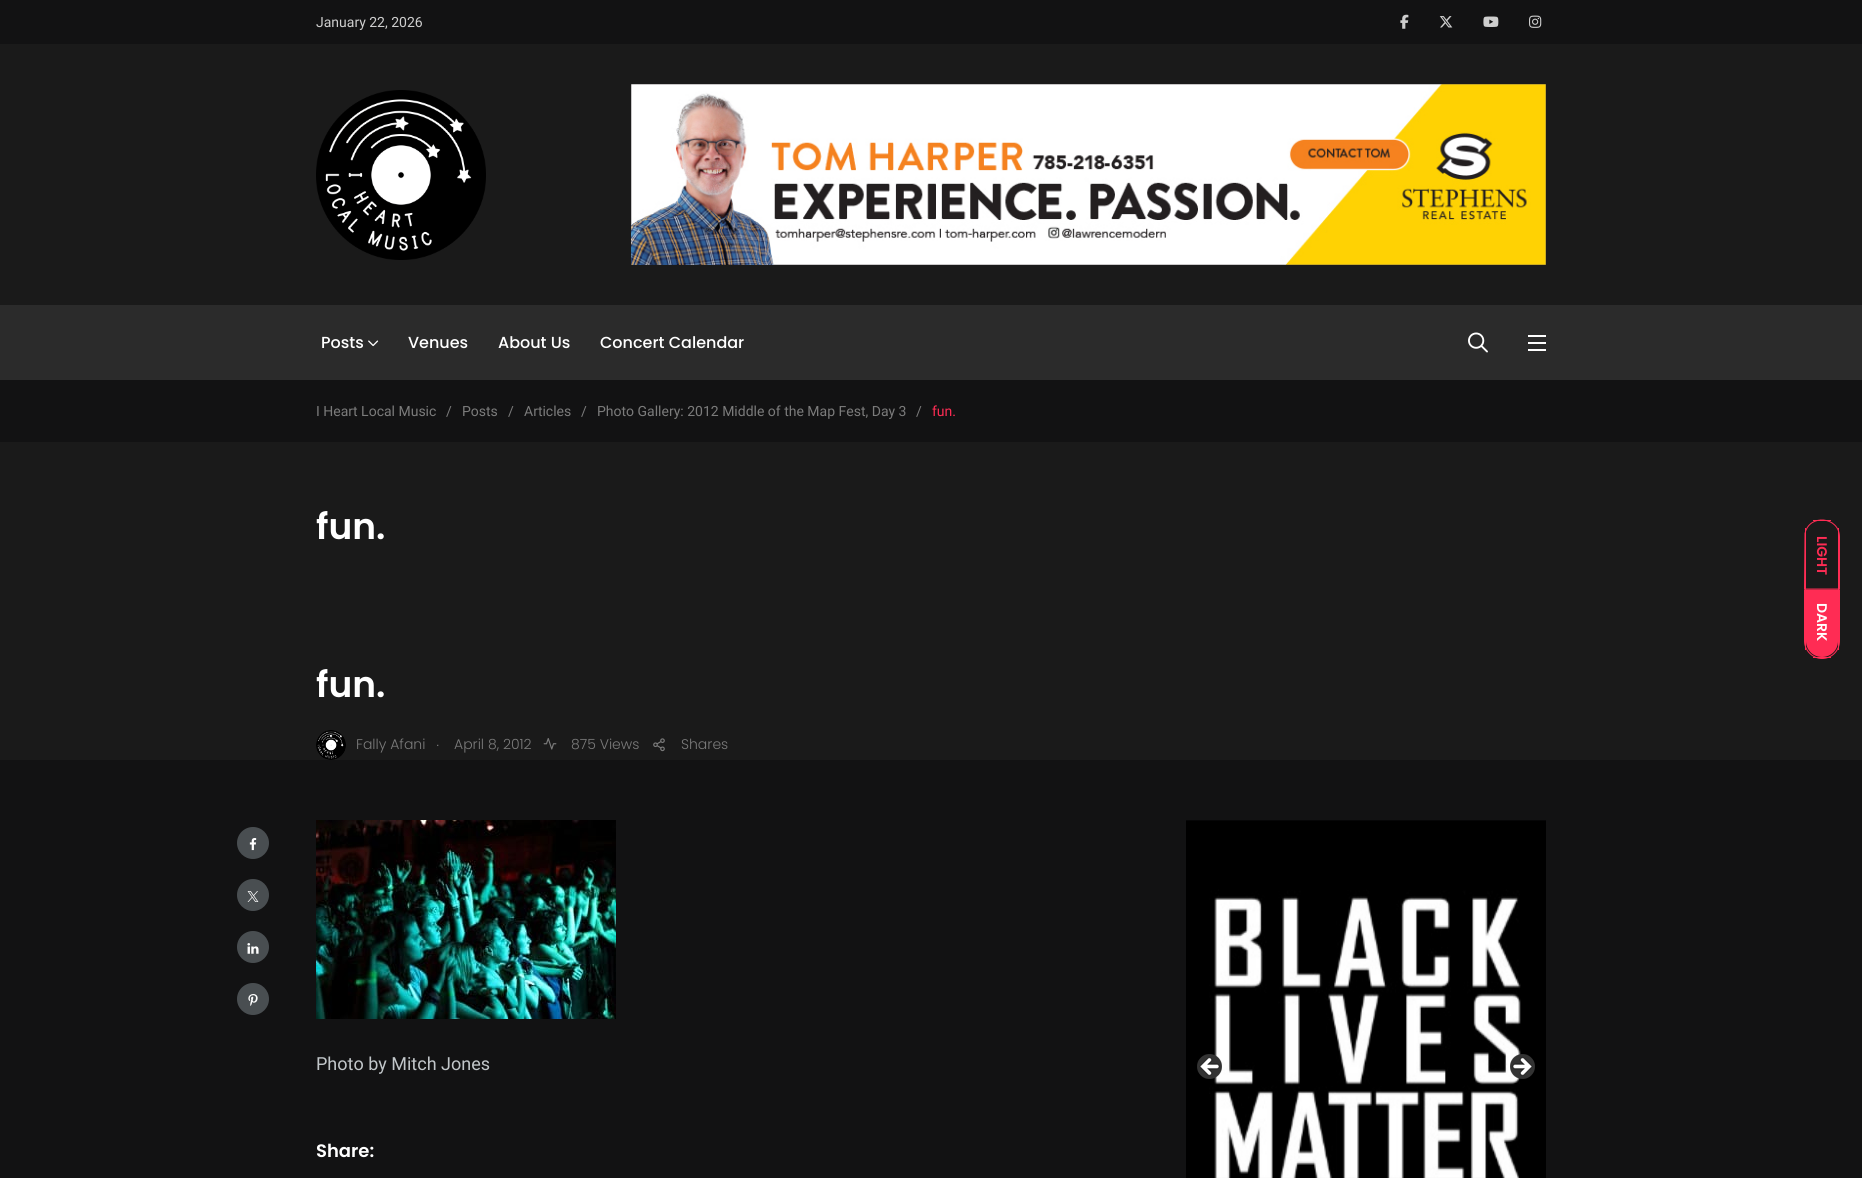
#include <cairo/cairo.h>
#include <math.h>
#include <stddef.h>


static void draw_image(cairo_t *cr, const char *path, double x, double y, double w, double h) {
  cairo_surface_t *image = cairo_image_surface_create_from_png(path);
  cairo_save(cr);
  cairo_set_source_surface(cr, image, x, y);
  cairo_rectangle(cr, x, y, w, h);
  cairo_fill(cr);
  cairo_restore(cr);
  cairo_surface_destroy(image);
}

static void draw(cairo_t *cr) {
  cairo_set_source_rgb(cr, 18 / 255.0, 18 / 255.0, 19 / 255.0);
  cairo_paint(cr);
  draw_image(cr, "images/1.png", 1400, 14, 9, 15);
  draw_image(cr, "images/2.png", 1439, 16, 14, 12);
  draw_image(cr, "images/3.png", 1483, 16, 16, 11);
  draw_image(cr, "images/4.png", 1529, 15, 13, 13);
  cairo_set_source_rgb(cr, 26 / 255.0, 26 / 255.0, 26 / 255.0);
  cairo_rectangle(cr, 0, 44, 1862, 261);
  cairo_fill(cr);
  draw_image(cr, "images/5.png", 316, 90, 170, 170);
  draw_image(cr, "images/6.png", 631, 84, 915, 181);
  cairo_set_source_rgb(cr, 43 / 255.0, 43 / 255.0, 43 / 255.0);
  cairo_rectangle(cr, 0, 305, 1862, 75);
  cairo_fill(cr);
  draw_image(cr, "images/7.png", 368, 340, 11, 7);
  draw_image(cr, "images/8.png", 1468, 332, 20, 21);
  cairo_set_source_rgb(cr, 1, 1, 1);
  cairo_rectangle(cr, 1528, 335, 18, 2);
  cairo_fill(cr);
  cairo_rectangle(cr, 1528, 342, 18, 2);
  cairo_fill(cr);
  cairo_rectangle(cr, 1528, 349, 18, 2);
  cairo_fill(cr);
  cairo_set_source_rgb(cr, 26 / 255.0, 26 / 255.0, 26 / 255.0);
  cairo_rectangle(cr, 0, 442, 1862, 318);
  cairo_fill(cr);
  draw_image(cr, "images/9.png", 316, 730, 30, 30);
  draw_image(cr, "images/10.png", 543, 738, 14, 12);
  draw_image(cr, "images/11.png", 653, 738, 12, 14);
  cairo_set_source_rgb(cr, 73 / 255.0, 78 / 255.0, 81 / 255.0);
  cairo_arc(cr, 253, 843, 16, 0, 2 * M_PI);
  cairo_fill(cr);
  draw_image(cr, "images/12.png", 249, 838, 8, 13);
  cairo_arc(cr, 253, 895, 16, 0, 2 * M_PI);
  cairo_fill(cr);
  draw_image(cr, "images/13.png", 247, 891, 12, 11);
  cairo_arc(cr, 253, 947, 16, 0, 2 * M_PI);
  cairo_fill(cr);
  draw_image(cr, "images/14.png", 247, 943, 12, 11);
  cairo_arc(cr, 253, 999, 16, 0, 2 * M_PI);
  cairo_fill(cr);
  draw_image(cr, "images/15.png", 248, 994, 10, 12);
  draw_image(cr, "images/16.png", 316, 820, 300, 199);
  draw_image(cr, "images/17.png", 1186, 820, 360, 358);
  draw_image(cr, "images/18.png", 1197, 1054, 25, 25);
  draw_image(cr, "images/19.png", 1510, 1054, 25, 25);
  cairo_new_path(cr);
  cairo_move_to(cr, 1839.5, 537);
  cairo_line_to(cr, 1839.5, 589);
  cairo_line_to(cr, 1804.5, 589);
  cairo_line_to(cr, 1805, 533.5);
  cairo_curve_to(cr, 1809, 513.5, 1839.5, 516.5, 1839.5, 537);
  cairo_close_path(cr);
  cairo_set_source_rgb(cr, 1, 44 / 255.0, 84 / 255.0);
  cairo_set_line_width(cr, 1);
  cairo_stroke(cr);
  cairo_rectangle(cr, 1838, 528, 1, 61);
  cairo_fill(cr);
  cairo_rectangle(cr, 1805, 528, 1, 61);
  cairo_fill(cr);
  cairo_rectangle(cr, 1813, 520, 18, 1);
  cairo_fill(cr);
  cairo_new_path(cr);
  cairo_move_to(cr, 1838, 590);
  cairo_line_to(cr, 1838, 641);
  cairo_curve_to(cr, 1838, 650, 1831, 657, 1822, 657);
  cairo_curve_to(cr, 1813, 657, 1806, 650, 1806, 641);
  cairo_line_to(cr, 1806, 590);
  cairo_close_path(cr);
  cairo_fill(cr);
  cairo_new_path(cr);
  cairo_move_to(cr, 1839.5, 590);
  cairo_line_to(cr, 1839.5, 641);
  cairo_curve_to(cr, 1839.5, 650.5, 1832, 658.5, 1822, 658.5);
  cairo_curve_to(cr, 1812.5, 658.5, 1804.5, 650.5, 1804.5, 641);
  cairo_line_to(cr, 1804.5, 590);
  cairo_close_path(cr);
  cairo_stroke(cr);
  cairo_rectangle(cr, 1838, 589, 1, 61);
  cairo_fill(cr);
  cairo_rectangle(cr, 1813, 657, 18, 1);
  cairo_fill(cr);
  cairo_rectangle(cr, 1805, 589, 1, 61);
  cairo_fill(cr);
  cairo_select_font_face(cr, "Roboto", CAIRO_FONT_SLANT_NORMAL, CAIRO_FONT_WEIGHT_NORMAL);
  cairo_set_font_size(cr, 14);
  cairo_set_source_rgb(cr, 206 / 255.0, 206 / 255.0, 206 / 255.0);
  cairo_move_to(cr, 316, 27);
  cairo_show_text(cr, "January 22, 2026");
  cairo_select_font_face(cr, "Poppins Medium", CAIRO_FONT_SLANT_NORMAL, CAIRO_FONT_WEIGHT_NORMAL);
  cairo_set_font_size(cr, 16);
  cairo_set_source_rgb(cr, 1, 1, 1);
  cairo_move_to(cr, 321, 348);
  cairo_show_text(cr, "Posts");
  cairo_move_to(cr, 408, 348);
  cairo_show_text(cr, "Venues");
  cairo_move_to(cr, 498, 348);
  cairo_show_text(cr, "About Us");
  cairo_move_to(cr, 600, 348);
  cairo_show_text(cr, "Concert Calendar");
  cairo_select_font_face(cr, "Roboto", CAIRO_FONT_SLANT_NORMAL, CAIRO_FONT_WEIGHT_NORMAL);
  cairo_set_font_size(cr, 14);
  cairo_set_source_rgb(cr, 123 / 255.0, 123 / 255.0, 123 / 255.0);
  cairo_move_to(cr, 316, 416);
  cairo_show_text(cr, "I Heart Local Music");
  cairo_move_to(cr, 446, 416);
  cairo_show_text(cr, "/");
  cairo_move_to(cr, 462, 416);
  cairo_show_text(cr, "Posts");
  cairo_move_to(cr, 508, 416);
  cairo_show_text(cr, "/");
  cairo_move_to(cr, 524, 416);
  cairo_show_text(cr, "Articles");
  cairo_move_to(cr, 581, 416);
  cairo_show_text(cr, "/");
  cairo_move_to(cr, 597, 416);
  cairo_show_text(cr, "Photo Gallery: 2012 Middle of the Map Fest, Day 3");
  cairo_move_to(cr, 916, 416);
  cairo_show_text(cr, "/");
  cairo_set_source_rgb(cr, 1, 44 / 255.0, 84 / 255.0);
  cairo_move_to(cr, 932, 416);
  cairo_show_text(cr, "fun.");
  cairo_select_font_face(cr, "Poppins SemiBold", CAIRO_FONT_SLANT_NORMAL, CAIRO_FONT_WEIGHT_NORMAL);
  cairo_set_font_size(cr, 36);
  cairo_set_source_rgb(cr, 1, 1, 1);
  cairo_move_to(cr, 316, 539);
  cairo_show_text(cr, "fun.");
  cairo_move_to(cr, 316, 697);
  cairo_show_text(cr, "fun.");
  cairo_select_font_face(cr, "Poppins Light", CAIRO_FONT_SLANT_NORMAL, CAIRO_FONT_WEIGHT_NORMAL);
  cairo_set_font_size(cr, 14);
  cairo_set_source_rgb(cr, 123 / 255.0, 123 / 255.0, 123 / 255.0);
  cairo_move_to(cr, 356, 749);
  cairo_show_text(cr, "Fally Afani");
  cairo_select_font_face(cr, "Poppins Light", CAIRO_FONT_SLANT_ITALIC, CAIRO_FONT_WEIGHT_NORMAL);
  cairo_move_to(cr, 437, 746);
  cairo_show_text(cr, ".");
  cairo_select_font_face(cr, "Poppins Light", CAIRO_FONT_SLANT_NORMAL, CAIRO_FONT_WEIGHT_NORMAL);
  cairo_move_to(cr, 454, 749);
  cairo_show_text(cr, "April 8, 2012");
  cairo_move_to(cr, 571, 749);
  cairo_show_text(cr, "875 Views");
  cairo_move_to(cr, 681, 749);
  cairo_show_text(cr, "Shares");
  cairo_select_font_face(cr, "Roboto", CAIRO_FONT_SLANT_NORMAL, CAIRO_FONT_WEIGHT_NORMAL);
  cairo_set_font_size(cr, 18);
  cairo_set_source_rgb(cr, 193 / 255.0, 198 / 255.0, 201 / 255.0);
  cairo_move_to(cr, 316, 1070);
  cairo_show_text(cr, "Photo by Mitch Jones");
  cairo_select_font_face(cr, "Poppins SemiBold", CAIRO_FONT_SLANT_NORMAL, CAIRO_FONT_WEIGHT_NORMAL);
  cairo_set_source_rgb(cr, 1, 1, 1);
  cairo_move_to(cr, 316, 1157);
  cairo_show_text(cr, "Share:");
  cairo_set_font_size(cr, 14);
  cairo_set_source_rgb(cr, 1, 44 / 255.0, 84 / 255.0);
  cairo_save(cr);
  cairo_translate(cr, 1817, 536);
  cairo_rotate(cr, 90 * M_PI / 180);
  cairo_move_to(cr, 0, 0);
  cairo_show_text(cr, "LIGHT");
  cairo_restore(cr);
  cairo_set_source_rgb(cr, 1, 1, 1);
  cairo_save(cr);
  cairo_translate(cr, 1817, 603);
  cairo_rotate(cr, 90 * M_PI / 180);
  cairo_move_to(cr, 0, 0);
  cairo_show_text(cr, "DARK");
  cairo_restore(cr);
}

int main(void) {
  cairo_surface_t *surface = cairo_image_surface_create(CAIRO_FORMAT_RGB24, 1862, 1178);
  cairo_t *cr = cairo_create(surface);
  cairo_font_options_t *options = cairo_font_options_create();
  cairo_font_options_set_hint_metrics(options, CAIRO_HINT_METRICS_OFF);
  cairo_font_options_set_hint_style(options, CAIRO_HINT_STYLE_NONE);
  cairo_set_font_options(cr, options);
  cairo_set_miter_limit(cr, 4);
  draw(cr);
  cairo_surface_write_to_png(surface, "out.png");
  cairo_font_options_destroy(options);
  cairo_destroy(cr);
  cairo_surface_destroy(surface);
  return 0;
}
